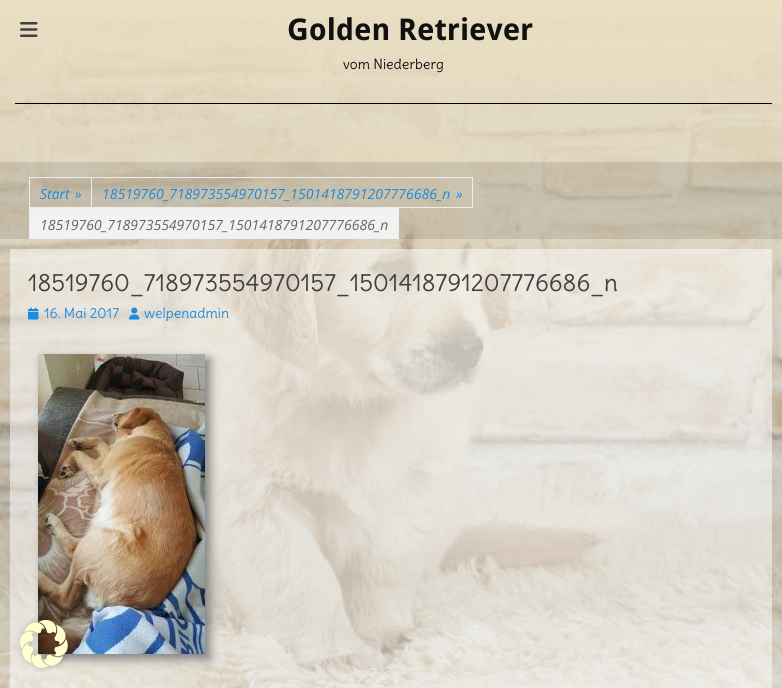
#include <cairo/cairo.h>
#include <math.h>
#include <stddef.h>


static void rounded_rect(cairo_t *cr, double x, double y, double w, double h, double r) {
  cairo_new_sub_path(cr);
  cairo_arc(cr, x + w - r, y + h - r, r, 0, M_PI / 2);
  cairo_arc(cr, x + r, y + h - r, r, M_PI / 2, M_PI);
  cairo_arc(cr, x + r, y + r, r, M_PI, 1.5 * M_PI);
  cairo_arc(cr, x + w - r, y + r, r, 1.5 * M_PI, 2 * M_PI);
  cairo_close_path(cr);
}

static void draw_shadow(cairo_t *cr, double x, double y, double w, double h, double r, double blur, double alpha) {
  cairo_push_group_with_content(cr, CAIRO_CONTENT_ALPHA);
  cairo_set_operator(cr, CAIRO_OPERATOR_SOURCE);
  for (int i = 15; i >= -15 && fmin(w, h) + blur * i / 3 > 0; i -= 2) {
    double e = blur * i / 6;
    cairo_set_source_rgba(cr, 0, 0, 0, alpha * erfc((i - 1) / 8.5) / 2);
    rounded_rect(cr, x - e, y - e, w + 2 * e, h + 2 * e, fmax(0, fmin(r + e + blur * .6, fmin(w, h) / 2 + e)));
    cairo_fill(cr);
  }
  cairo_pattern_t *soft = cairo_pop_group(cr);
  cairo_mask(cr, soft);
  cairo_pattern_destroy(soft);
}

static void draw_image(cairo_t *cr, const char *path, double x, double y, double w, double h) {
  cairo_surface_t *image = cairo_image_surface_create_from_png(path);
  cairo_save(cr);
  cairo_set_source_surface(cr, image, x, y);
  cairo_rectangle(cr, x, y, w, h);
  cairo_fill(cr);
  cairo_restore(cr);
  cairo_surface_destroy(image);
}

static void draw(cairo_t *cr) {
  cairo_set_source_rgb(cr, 236 / 255.0, 224 / 255.0, 194 / 255.0);
  cairo_paint(cr);
  draw_image(cr, "images/1.png", 0, 8, 782, 680);
  draw_image(cr, "images/2.png", 20, 22, 18, 15);
  cairo_set_source_rgb(cr, 0, 0, 0);
  cairo_rectangle(cr, 15, 103, 757, 1);
  cairo_fill(cr);
  cairo_set_source_rgba(cr, 0, 0, 0, 0.1);
  cairo_rectangle(cr, 0, 162, 782, 77);
  cairo_fill(cr);
  cairo_rectangle(cr, 29.5, 177.5, 62, 30);
  cairo_set_source_rgb(cr, 238 / 255.0, 238 / 255.0, 238 / 255.0);
  cairo_set_line_width(cr, 1);
  cairo_stroke(cr);
  cairo_rectangle(cr, 91.5, 177.5, 381, 30);
  cairo_stroke(cr);
  cairo_set_source_rgb(cr, 242 / 255.0, 242 / 255.0, 242 / 255.0);
  cairo_rectangle(cr, 29.5, 208.5, 369, 30);
  cairo_fill_preserve(cr);
  cairo_set_source_rgb(cr, 238 / 255.0, 238 / 255.0, 238 / 255.0);
  cairo_stroke(cr);
  cairo_set_source_rgba(cr, 1, 1, 1, 0.5);
  cairo_rectangle(cr, 10, 249, 762, 439);
  cairo_fill(cr);
  draw_image(cr, "images/3.png", 28, 307, 11, 13);
  draw_image(cr, "images/4.png", 129, 307, 11, 13);
  cairo_set_source_rgb(cr, 128 / 255.0, 128 / 255.0, 128 / 255.0);
  draw_shadow(cr, 43, 359, 167, 300, 0, 5, 1);
  draw_image(cr, "images/5.png", 38, 354, 167, 300);
  draw_image(cr, "images/6.png", 15, 616, 55, 56);
  cairo_select_font_face(cr, "Droid Sans", CAIRO_FONT_SLANT_NORMAL, CAIRO_FONT_WEIGHT_BOLD);
  cairo_set_font_size(cr, 30);
  cairo_set_source_rgb(cr, 17 / 255.0, 17 / 255.0, 17 / 255.0);
  cairo_move_to(cr, 287, 40);
  cairo_show_text(cr, "Golden Retriever");
  cairo_select_font_face(cr, "Delius", CAIRO_FONT_SLANT_NORMAL, CAIRO_FONT_WEIGHT_NORMAL);
  cairo_set_font_size(cr, 14);
  cairo_move_to(cr, 343, 69);
  cairo_show_text(cr, "vom Niederberg");
  cairo_select_font_face(cr, "Open Sans", CAIRO_FONT_SLANT_ITALIC, CAIRO_FONT_WEIGHT_NORMAL);
  cairo_set_source_rgb(cr, 27 / 255.0, 139 / 255.0, 224 / 255.0);
  cairo_move_to(cr, 40, 199);
  cairo_show_text(cr, "Start");
  cairo_move_to(cr, 75, 199);
  cairo_show_text(cr, "»");
  cairo_move_to(cr, 102, 199);
  cairo_show_text(cr, "18519760_718973554970157_1501418791207776686_n");
  cairo_move_to(cr, 456, 199);
  cairo_show_text(cr, "»");
  cairo_set_source_rgb(cr, 102 / 255.0, 102 / 255.0, 102 / 255.0);
  cairo_move_to(cr, 40, 230);
  cairo_show_text(cr, "18519760_718973554970157_1501418791207776686_n");
  cairo_select_font_face(cr, "Delius", CAIRO_FONT_SLANT_NORMAL, CAIRO_FONT_WEIGHT_NORMAL);
  cairo_set_font_size(cr, 24);
  cairo_set_source_rgb(cr, 64 / 255.0, 64 / 255.0, 64 / 255.0);
  cairo_move_to(cr, 28, 291);
  cairo_show_text(cr, "18519760_718973554970157_1501418791207776686_n");
  cairo_set_font_size(cr, 14);
  cairo_set_source_rgb(cr, 27 / 255.0, 139 / 255.0, 224 / 255.0);
  cairo_move_to(cr, 44, 318);
  cairo_show_text(cr, "16. Mai 2017");
  cairo_move_to(cr, 144, 318);
  cairo_show_text(cr, "welpenadmin");
}

int main(void) {
  cairo_surface_t *surface = cairo_image_surface_create(CAIRO_FORMAT_RGB24, 782, 688);
  cairo_t *cr = cairo_create(surface);
  cairo_font_options_t *options = cairo_font_options_create();
  cairo_font_options_set_hint_metrics(options, CAIRO_HINT_METRICS_OFF);
  cairo_font_options_set_hint_style(options, CAIRO_HINT_STYLE_NONE);
  cairo_set_font_options(cr, options);
  cairo_set_miter_limit(cr, 4);
  draw(cr);
  cairo_surface_write_to_png(surface, "out.png");
  cairo_font_options_destroy(options);
  cairo_destroy(cr);
  cairo_surface_destroy(surface);
  return 0;
}
